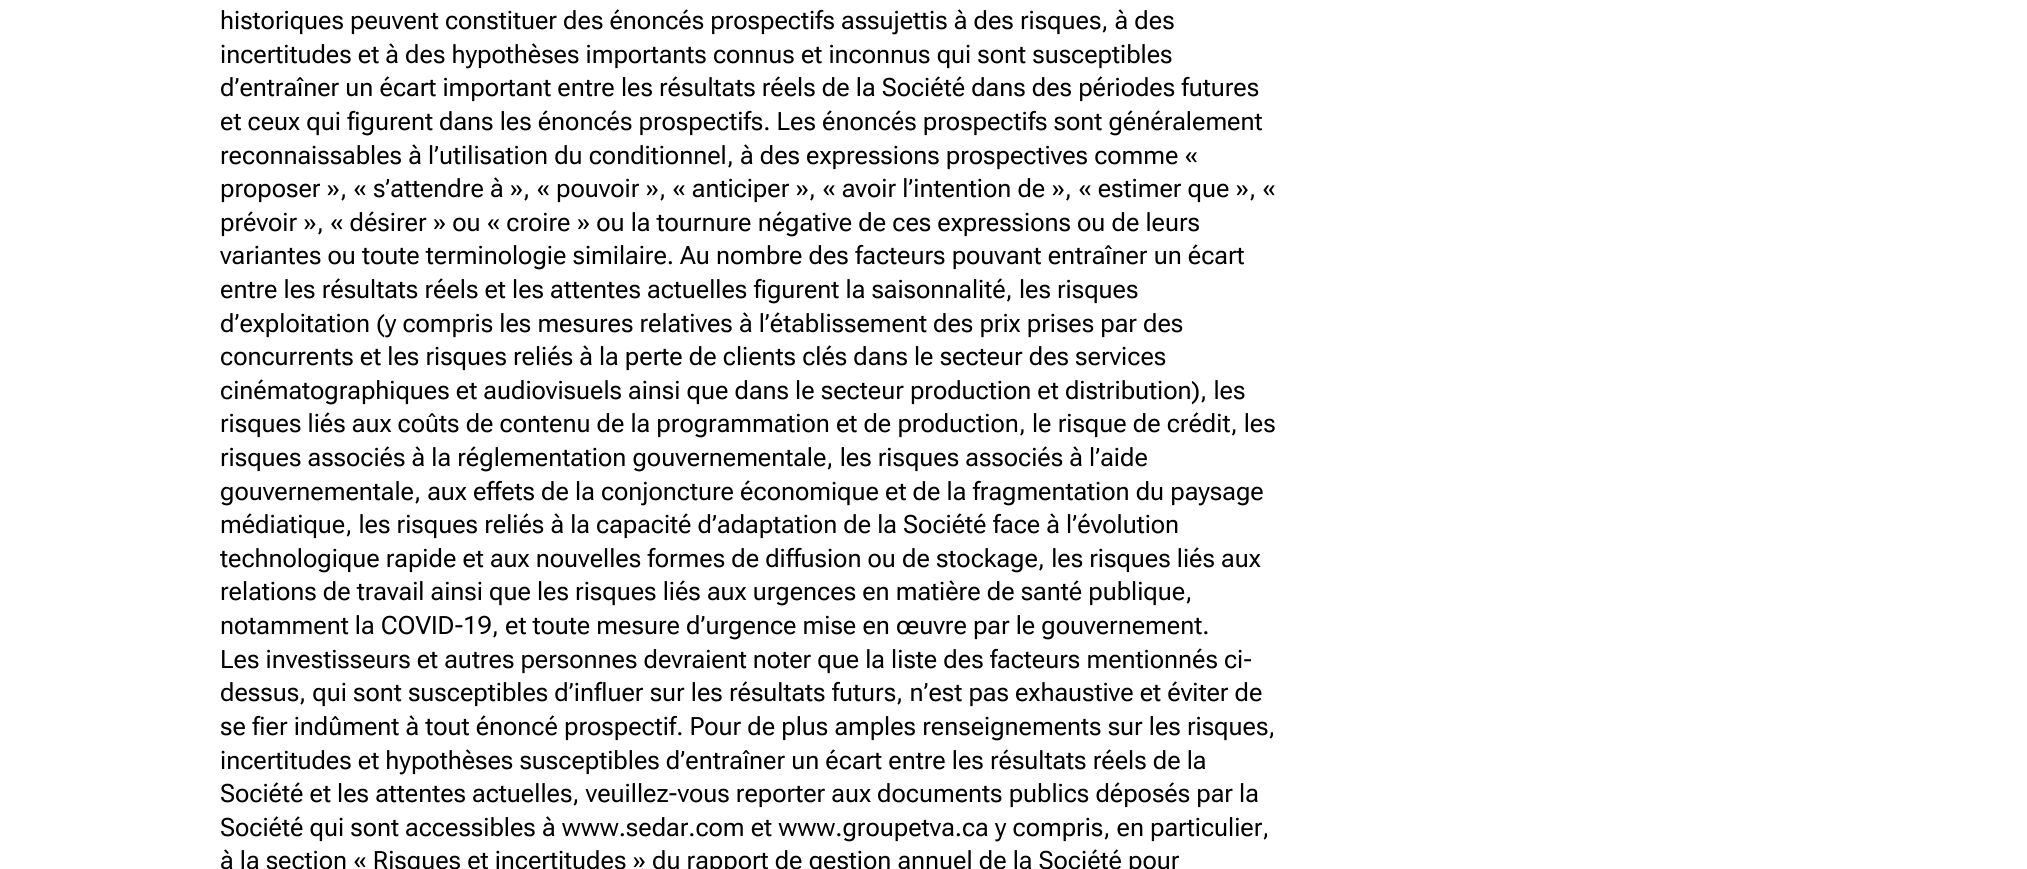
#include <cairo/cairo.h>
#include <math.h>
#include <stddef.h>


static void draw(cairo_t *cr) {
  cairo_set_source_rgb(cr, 1, 1, 1);
  cairo_paint(cr);
  cairo_select_font_face(cr, "Roboto Flex", CAIRO_FONT_SLANT_NORMAL, CAIRO_FONT_WEIGHT_NORMAL);
  cairo_set_font_size(cr, 25.2);
  cairo_set_source_rgb(cr, 0, 0, 0);
  cairo_move_to(cr, 220, 29);
  cairo_show_text(cr, "historiques peuvent constituer des énoncés prospectifs assujettis à des risques, à des");
  cairo_move_to(cr, 220, 63);
  cairo_show_text(cr, "incertitudes et à des hypothèses importants connus et inconnus qui sont susceptibles");
  cairo_move_to(cr, 220, 96);
  cairo_show_text(cr, "d’entraîner un écart important entre les résultats réels de la Société dans des périodes futures");
  cairo_move_to(cr, 220, 130);
  cairo_show_text(cr, "et ceux qui figurent dans les énoncés prospectifs. Les énoncés prospectifs sont généralement");
  cairo_move_to(cr, 220, 164);
  cairo_show_text(cr, "reconnaissables à l’utilisation du conditionnel, à des expressions prospectives comme «");
  cairo_move_to(cr, 220, 197);
  cairo_show_text(cr, "proposer », « s’attendre à », « pouvoir », « anticiper », « avoir l’intention de », « estimer que », «");
  cairo_move_to(cr, 220, 231);
  cairo_show_text(cr, "prévoir », « désirer » ou « croire » ou la tournure négative de ces expressions ou de leurs");
  cairo_move_to(cr, 220, 264);
  cairo_show_text(cr, "variantes ou toute terminologie similaire. Au nombre des facteurs pouvant entraîner un écart");
  cairo_move_to(cr, 220, 298);
  cairo_show_text(cr, "entre les résultats réels et les attentes actuelles figurent la saisonnalité, les risques");
  cairo_move_to(cr, 220, 332);
  cairo_show_text(cr, "d’exploitation (y compris les mesures relatives à l’établissement des prix prises par des");
  cairo_move_to(cr, 220, 365);
  cairo_show_text(cr, "concurrents et les risques reliés à la perte de clients clés dans le secteur des services");
  cairo_move_to(cr, 220, 399);
  cairo_show_text(cr, "cinématographiques et audiovisuels ainsi que dans le secteur production et distribution), les");
  cairo_move_to(cr, 220, 432);
  cairo_show_text(cr, "risques liés aux coûts de contenu de la programmation et de production, le risque de crédit, les");
  cairo_move_to(cr, 220, 466);
  cairo_show_text(cr, "risques associés à la réglementation gouvernementale, les risques associés à l’aide");
  cairo_move_to(cr, 220, 500);
  cairo_show_text(cr, "gouvernementale, aux effets de la conjoncture économique et de la fragmentation du paysage");
  cairo_move_to(cr, 220, 533);
  cairo_show_text(cr, "médiatique, les risques reliés à la capacité d’adaptation de la Société face à l’évolution");
  cairo_move_to(cr, 220, 567);
  cairo_show_text(cr, "technologique rapide et aux nouvelles formes de diffusion ou de stockage, les risques liés aux");
  cairo_move_to(cr, 220, 600);
  cairo_show_text(cr, "relations de travail ainsi que les risques liés aux urgences en matière de santé publique,");
  cairo_move_to(cr, 220, 634);
  cairo_show_text(cr, "notamment la COVID-19, et toute mesure d’urgence mise en œuvre par le gouvernement.");
  cairo_move_to(cr, 220, 668);
  cairo_show_text(cr, "Les investisseurs et autres personnes devraient noter que la liste des facteurs mentionnés ci-");
  cairo_move_to(cr, 220, 701);
  cairo_show_text(cr, "dessus, qui sont susceptibles d’influer sur les résultats futurs, n’est pas exhaustive et éviter de");
  cairo_move_to(cr, 220, 735);
  cairo_show_text(cr, "se fier indûment à tout énoncé prospectif. Pour de plus amples renseignements sur les risques,");
  cairo_move_to(cr, 220, 769);
  cairo_show_text(cr, "incertitudes et hypothèses susceptibles d’entraîner un écart entre les résultats réels de la");
  cairo_move_to(cr, 220, 802);
  cairo_show_text(cr, "Société et les attentes actuelles, veuillez-vous reporter aux documents publics déposés par la");
  cairo_move_to(cr, 220, 836);
  cairo_show_text(cr, "Société qui sont accessibles à www.sedar.com et www.groupetva.ca y compris, en particulier,");
  cairo_move_to(cr, 220, 869);
  cairo_show_text(cr, "à la section « Risques et incertitudes » du rapport de gestion annuel de la Société pour");
}

int main(void) {
  cairo_surface_t *surface = cairo_image_surface_create(CAIRO_FORMAT_RGB24, 2027, 869);
  cairo_t *cr = cairo_create(surface);
  cairo_font_options_t *options = cairo_font_options_create();
  cairo_font_options_set_hint_metrics(options, CAIRO_HINT_METRICS_OFF);
  cairo_font_options_set_hint_style(options, CAIRO_HINT_STYLE_NONE);
  cairo_set_font_options(cr, options);
  cairo_set_miter_limit(cr, 4);
  draw(cr);
  cairo_surface_write_to_png(surface, "out.png");
  cairo_font_options_destroy(options);
  cairo_destroy(cr);
  cairo_surface_destroy(surface);
  return 0;
}
